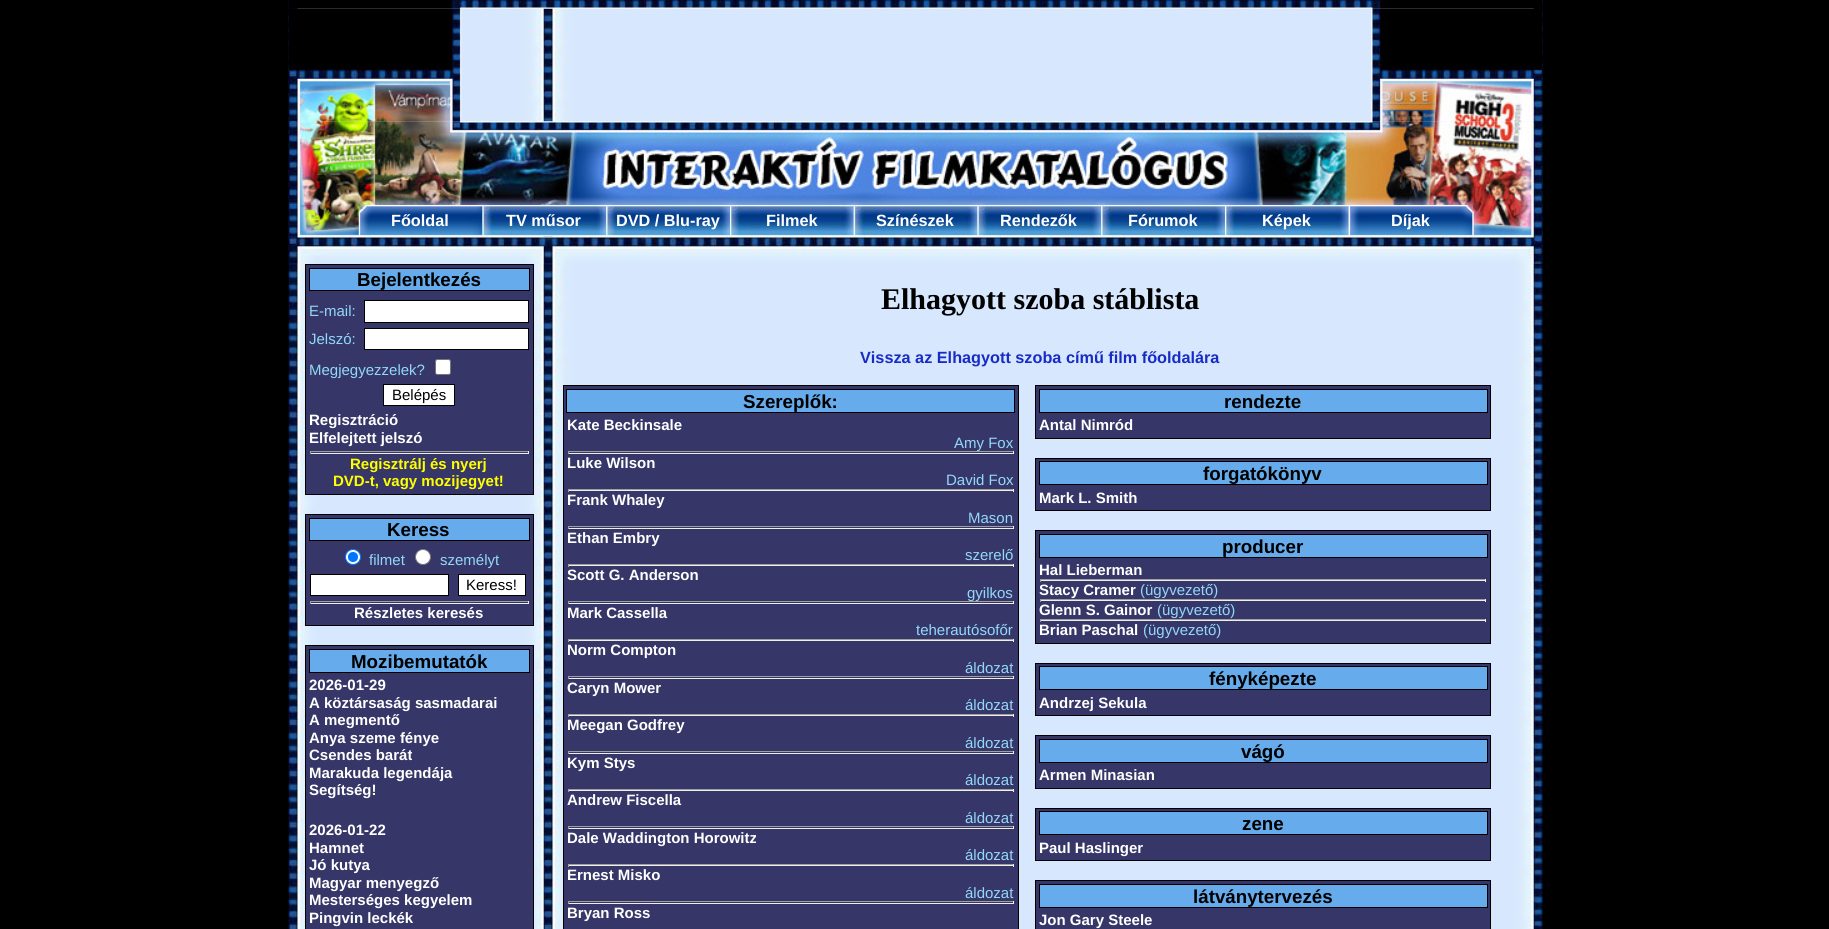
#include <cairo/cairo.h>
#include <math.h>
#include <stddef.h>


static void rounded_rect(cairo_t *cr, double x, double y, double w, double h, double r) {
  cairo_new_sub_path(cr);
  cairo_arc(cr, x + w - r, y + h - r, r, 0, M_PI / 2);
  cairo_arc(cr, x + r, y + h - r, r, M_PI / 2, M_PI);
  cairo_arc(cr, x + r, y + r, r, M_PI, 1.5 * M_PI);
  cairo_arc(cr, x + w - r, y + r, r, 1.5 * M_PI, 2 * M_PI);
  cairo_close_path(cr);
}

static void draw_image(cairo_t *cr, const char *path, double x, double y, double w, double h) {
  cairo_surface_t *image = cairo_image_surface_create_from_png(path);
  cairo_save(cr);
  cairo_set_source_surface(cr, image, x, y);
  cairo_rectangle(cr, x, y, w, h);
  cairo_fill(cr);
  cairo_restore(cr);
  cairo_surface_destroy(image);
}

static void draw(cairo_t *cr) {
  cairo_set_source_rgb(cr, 0, 0, 0);
  cairo_paint(cr);
  draw_image(cr, "images/1.png", 288, 0, 1255, 929);
  draw_image(cr, "images/2.png", 289, 0, 1254, 9);
  draw_image(cr, "images/3.png", 288, 8, 174, 114);
  draw_image(cr, "images/4.png", 1371, 8, 172, 114);
  draw_image(cr, "images/5.png", 288, 121, 1255, 84);
  draw_image(cr, "images/7.png", 358, 205, 125, 32);
  draw_image(cr, "images/6.png", 288, 205, 71, 32);
  draw_image(cr, "images/8.png", 482, 205, 125, 32);
  draw_image(cr, "images/9.png", 606, 205, 124, 32);
  draw_image(cr, "images/10.png", 730, 205, 124, 32);
  draw_image(cr, "images/11.png", 853, 205, 125, 32);
  draw_image(cr, "images/12.png", 977, 205, 125, 32);
  draw_image(cr, "images/9.png", 1101, 205, 124, 32);
  draw_image(cr, "images/13.png", 1225, 205, 124, 32);
  draw_image(cr, "images/14.png", 1348, 205, 125, 32);
  draw_image(cr, "images/15.png", 1472, 205, 71, 32);
  draw_image(cr, "images/16.png", 288, 236, 1255, 28);
  cairo_set_source_rgb(cr, 54 / 255.0, 55 / 255.0, 104 / 255.0);
  cairo_rectangle(cr, 305.5, 264.5, 228, 230);
  cairo_fill_preserve(cr);
  cairo_set_source_rgb(cr, 0, 0, 0);
  cairo_set_line_width(cr, 1);
  cairo_stroke(cr);
  cairo_set_source_rgb(cr, 102 / 255.0, 171 / 255.0, 235 / 255.0);
  cairo_rectangle(cr, 309.5, 268.5, 220, 22);
  cairo_fill_preserve(cr);
  cairo_set_source_rgb(cr, 0, 0, 0);
  cairo_stroke(cr);
  cairo_set_source_rgb(cr, 1, 1, 1);
  cairo_rectangle(cr, 364.5, 300.5, 164, 22);
  cairo_fill_preserve(cr);
  cairo_set_source_rgb(cr, 0, 0, 0);
  cairo_stroke(cr);
  cairo_set_source_rgb(cr, 1, 1, 1);
  cairo_rectangle(cr, 364.5, 328.5, 164, 21);
  cairo_fill_preserve(cr);
  cairo_set_source_rgb(cr, 0, 0, 0);
  cairo_stroke(cr);
  cairo_set_source_rgb(cr, 1, 1, 1);
  rounded_rect(cr, 435.5, 359.5, 15, 15, 2);
  cairo_fill_preserve(cr);
  cairo_set_source_rgb(cr, 118 / 255.0, 118 / 255.0, 118 / 255.0);
  cairo_stroke(cr);
  cairo_set_source_rgb(cr, 1, 1, 1);
  cairo_rectangle(cr, 383.5, 384.5, 71, 21);
  cairo_fill_preserve(cr);
  cairo_set_source_rgb(cr, 0, 0, 0);
  cairo_stroke(cr);
  cairo_set_source_rgb(cr, 159 / 255.0, 159 / 255.0, 159 / 255.0);
  cairo_rectangle(cr, 310, 451, 219, 1);
  cairo_fill(cr);
  cairo_set_source_rgb(cr, 238 / 255.0, 238 / 255.0, 238 / 255.0);
  cairo_rectangle(cr, 528, 451, 1, 3);
  cairo_fill(cr);
  cairo_rectangle(cr, 310, 453, 219, 1);
  cairo_fill(cr);
  cairo_set_source_rgb(cr, 159 / 255.0, 159 / 255.0, 159 / 255.0);
  cairo_rectangle(cr, 310, 451, 1, 3);
  cairo_fill(cr);
  cairo_set_source_rgb(cr, 54 / 255.0, 55 / 255.0, 104 / 255.0);
  cairo_rectangle(cr, 305.5, 514.5, 228, 111);
  cairo_fill_preserve(cr);
  cairo_set_source_rgb(cr, 0, 0, 0);
  cairo_stroke(cr);
  cairo_set_source_rgb(cr, 102 / 255.0, 171 / 255.0, 235 / 255.0);
  cairo_rectangle(cr, 309.5, 518.5, 220, 22);
  cairo_fill_preserve(cr);
  cairo_set_source_rgb(cr, 0, 0, 0);
  cairo_stroke(cr);
  cairo_set_source_rgb(cr, 1, 1, 1);
  cairo_arc(cr, 353, 557, 7.5, 0, 2 * M_PI);
  cairo_fill_preserve(cr);
  cairo_set_source_rgb(cr, 0, 117 / 255.0, 1);
  cairo_stroke(cr);
  cairo_arc(cr, 353, 557, 5, 0, 2 * M_PI);
  cairo_fill(cr);
  cairo_set_source_rgb(cr, 1, 1, 1);
  cairo_arc(cr, 423, 557, 7.5, 0, 2 * M_PI);
  cairo_fill_preserve(cr);
  cairo_set_source_rgb(cr, 118 / 255.0, 118 / 255.0, 118 / 255.0);
  cairo_stroke(cr);
  cairo_set_source_rgb(cr, 1, 1, 1);
  cairo_rectangle(cr, 310.5, 574.5, 138, 21);
  cairo_fill_preserve(cr);
  cairo_set_source_rgb(cr, 0, 0, 0);
  cairo_stroke(cr);
  cairo_set_source_rgb(cr, 1, 1, 1);
  cairo_rectangle(cr, 458.5, 574.5, 67, 21);
  cairo_fill_preserve(cr);
  cairo_set_source_rgb(cr, 0, 0, 0);
  cairo_stroke(cr);
  cairo_set_source_rgb(cr, 159 / 255.0, 159 / 255.0, 159 / 255.0);
  cairo_rectangle(cr, 310, 601, 219, 1);
  cairo_fill(cr);
  cairo_set_source_rgb(cr, 238 / 255.0, 238 / 255.0, 238 / 255.0);
  cairo_rectangle(cr, 528, 601, 1, 3);
  cairo_fill(cr);
  cairo_rectangle(cr, 310, 603, 219, 1);
  cairo_fill(cr);
  cairo_set_source_rgb(cr, 159 / 255.0, 159 / 255.0, 159 / 255.0);
  cairo_rectangle(cr, 310, 601, 1, 3);
  cairo_fill(cr);
  cairo_set_source_rgb(cr, 54 / 255.0, 55 / 255.0, 104 / 255.0);
  cairo_rectangle(cr, 305.5, 645.5, 228, 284);
  cairo_fill_preserve(cr);
  cairo_set_source_rgb(cr, 0, 0, 0);
  cairo_stroke(cr);
  cairo_set_source_rgb(cr, 102 / 255.0, 171 / 255.0, 235 / 255.0);
  cairo_rectangle(cr, 309.5, 649.5, 220, 23);
  cairo_fill_preserve(cr);
  cairo_set_source_rgb(cr, 0, 0, 0);
  cairo_stroke(cr);
  cairo_set_source_rgb(cr, 54 / 255.0, 55 / 255.0, 104 / 255.0);
  cairo_rectangle(cr, 563.5, 385.5, 455, 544);
  cairo_fill_preserve(cr);
  cairo_set_source_rgb(cr, 0, 0, 0);
  cairo_stroke(cr);
  cairo_set_source_rgb(cr, 102 / 255.0, 171 / 255.0, 235 / 255.0);
  cairo_rectangle(cr, 566.5, 389.5, 448, 23);
  cairo_fill_preserve(cr);
  cairo_set_source_rgb(cr, 0, 0, 0);
  cairo_stroke(cr);
  cairo_set_source_rgb(cr, 159 / 255.0, 159 / 255.0, 159 / 255.0);
  cairo_rectangle(cr, 568, 489, 446, 1);
  cairo_fill(cr);
  cairo_set_source_rgb(cr, 238 / 255.0, 238 / 255.0, 238 / 255.0);
  cairo_rectangle(cr, 1013, 489, 1, 3);
  cairo_fill(cr);
  cairo_rectangle(cr, 568, 490, 446, 1);
  cairo_fill(cr);
  cairo_set_source_rgb(cr, 159 / 255.0, 159 / 255.0, 159 / 255.0);
  cairo_rectangle(cr, 568, 489, 1, 3);
  cairo_fill(cr);
  cairo_rectangle(cr, 568, 526, 446, 1);
  cairo_fill(cr);
  cairo_set_source_rgb(cr, 238 / 255.0, 238 / 255.0, 238 / 255.0);
  cairo_rectangle(cr, 1013, 526, 1, 3);
  cairo_fill(cr);
  cairo_rectangle(cr, 568, 528, 446, 1);
  cairo_fill(cr);
  cairo_set_source_rgb(cr, 159 / 255.0, 159 / 255.0, 159 / 255.0);
  cairo_rectangle(cr, 568, 526, 1, 3);
  cairo_fill(cr);
  cairo_rectangle(cr, 568, 564, 446, 1);
  cairo_fill(cr);
  cairo_set_source_rgb(cr, 238 / 255.0, 238 / 255.0, 238 / 255.0);
  cairo_rectangle(cr, 1013, 564, 1, 3);
  cairo_fill(cr);
  cairo_rectangle(cr, 568, 565, 446, 1);
  cairo_fill(cr);
  cairo_set_source_rgb(cr, 159 / 255.0, 159 / 255.0, 159 / 255.0);
  cairo_rectangle(cr, 568, 564, 1, 3);
  cairo_fill(cr);
  cairo_rectangle(cr, 568, 639, 446, 1);
  cairo_fill(cr);
  cairo_set_source_rgb(cr, 238 / 255.0, 238 / 255.0, 238 / 255.0);
  cairo_rectangle(cr, 1013, 639, 1, 3);
  cairo_fill(cr);
  cairo_rectangle(cr, 568, 640, 446, 1);
  cairo_fill(cr);
  cairo_set_source_rgb(cr, 159 / 255.0, 159 / 255.0, 159 / 255.0);
  cairo_rectangle(cr, 568, 639, 1, 3);
  cairo_fill(cr);
  cairo_rectangle(cr, 568, 676, 446, 1);
  cairo_fill(cr);
  cairo_set_source_rgb(cr, 238 / 255.0, 238 / 255.0, 238 / 255.0);
  cairo_rectangle(cr, 1013, 676, 1, 3);
  cairo_fill(cr);
  cairo_rectangle(cr, 568, 678, 446, 1);
  cairo_fill(cr);
  cairo_set_source_rgb(cr, 159 / 255.0, 159 / 255.0, 159 / 255.0);
  cairo_rectangle(cr, 568, 676, 1, 3);
  cairo_fill(cr);
  cairo_rectangle(cr, 568, 714, 446, 1);
  cairo_fill(cr);
  cairo_set_source_rgb(cr, 238 / 255.0, 238 / 255.0, 238 / 255.0);
  cairo_rectangle(cr, 1013, 714, 1, 3);
  cairo_fill(cr);
  cairo_rectangle(cr, 568, 715, 446, 1);
  cairo_fill(cr);
  cairo_set_source_rgb(cr, 159 / 255.0, 159 / 255.0, 159 / 255.0);
  cairo_rectangle(cr, 568, 714, 1, 3);
  cairo_fill(cr);
  cairo_rectangle(cr, 568, 751, 446, 1);
  cairo_fill(cr);
  cairo_set_source_rgb(cr, 238 / 255.0, 238 / 255.0, 238 / 255.0);
  cairo_rectangle(cr, 1013, 751, 1, 3);
  cairo_fill(cr);
  cairo_rectangle(cr, 568, 753, 446, 1);
  cairo_fill(cr);
  cairo_set_source_rgb(cr, 159 / 255.0, 159 / 255.0, 159 / 255.0);
  cairo_rectangle(cr, 568, 751, 1, 3);
  cairo_fill(cr);
  cairo_rectangle(cr, 568, 789, 446, 1);
  cairo_fill(cr);
  cairo_set_source_rgb(cr, 238 / 255.0, 238 / 255.0, 238 / 255.0);
  cairo_rectangle(cr, 1013, 789, 1, 3);
  cairo_fill(cr);
  cairo_rectangle(cr, 568, 790, 446, 1);
  cairo_fill(cr);
  cairo_set_source_rgb(cr, 159 / 255.0, 159 / 255.0, 159 / 255.0);
  cairo_rectangle(cr, 568, 789, 1, 3);
  cairo_fill(cr);
  cairo_rectangle(cr, 568, 826, 446, 1);
  cairo_fill(cr);
  cairo_set_source_rgb(cr, 238 / 255.0, 238 / 255.0, 238 / 255.0);
  cairo_rectangle(cr, 1013, 826, 1, 3);
  cairo_fill(cr);
  cairo_rectangle(cr, 568, 828, 446, 1);
  cairo_fill(cr);
  cairo_set_source_rgb(cr, 159 / 255.0, 159 / 255.0, 159 / 255.0);
  cairo_rectangle(cr, 568, 826, 1, 3);
  cairo_fill(cr);
  cairo_rectangle(cr, 568, 864, 446, 1);
  cairo_fill(cr);
  cairo_set_source_rgb(cr, 238 / 255.0, 238 / 255.0, 238 / 255.0);
  cairo_rectangle(cr, 1013, 864, 1, 3);
  cairo_fill(cr);
  cairo_rectangle(cr, 568, 865, 446, 1);
  cairo_fill(cr);
  cairo_set_source_rgb(cr, 159 / 255.0, 159 / 255.0, 159 / 255.0);
  cairo_rectangle(cr, 568, 864, 1, 3);
  cairo_fill(cr);
  cairo_rectangle(cr, 568, 901, 446, 1);
  cairo_fill(cr);
  cairo_set_source_rgb(cr, 238 / 255.0, 238 / 255.0, 238 / 255.0);
  cairo_rectangle(cr, 1013, 901, 1, 3);
  cairo_fill(cr);
  cairo_rectangle(cr, 568, 903, 446, 1);
  cairo_fill(cr);
  cairo_set_source_rgb(cr, 159 / 255.0, 159 / 255.0, 159 / 255.0);
  cairo_rectangle(cr, 568, 901, 1, 3);
  cairo_fill(cr);
  cairo_set_source_rgb(cr, 54 / 255.0, 55 / 255.0, 104 / 255.0);
  cairo_rectangle(cr, 1035.5, 385.5, 455, 53);
  cairo_fill_preserve(cr);
  cairo_set_source_rgb(cr, 0, 0, 0);
  cairo_stroke(cr);
  cairo_set_source_rgb(cr, 102 / 255.0, 171 / 255.0, 235 / 255.0);
  cairo_rectangle(cr, 1039.5, 389.5, 448, 23);
  cairo_fill_preserve(cr);
  cairo_set_source_rgb(cr, 0, 0, 0);
  cairo_stroke(cr);
  cairo_set_source_rgb(cr, 54 / 255.0, 55 / 255.0, 104 / 255.0);
  cairo_rectangle(cr, 1035.5, 458.5, 455, 52);
  cairo_fill_preserve(cr);
  cairo_set_source_rgb(cr, 0, 0, 0);
  cairo_stroke(cr);
  cairo_set_source_rgb(cr, 102 / 255.0, 171 / 255.0, 235 / 255.0);
  cairo_rectangle(cr, 1039.5, 461.5, 448, 23);
  cairo_fill_preserve(cr);
  cairo_set_source_rgb(cr, 0, 0, 0);
  cairo_stroke(cr);
  cairo_set_source_rgb(cr, 54 / 255.0, 55 / 255.0, 104 / 255.0);
  cairo_rectangle(cr, 1035.5, 530.5, 455, 113);
  cairo_fill_preserve(cr);
  cairo_set_source_rgb(cr, 0, 0, 0);
  cairo_stroke(cr);
  cairo_set_source_rgb(cr, 102 / 255.0, 171 / 255.0, 235 / 255.0);
  cairo_rectangle(cr, 1039.5, 534.5, 448, 23);
  cairo_fill_preserve(cr);
  cairo_set_source_rgb(cr, 0, 0, 0);
  cairo_stroke(cr);
  cairo_set_source_rgb(cr, 159 / 255.0, 159 / 255.0, 159 / 255.0);
  cairo_rectangle(cr, 1040, 579, 446, 1);
  cairo_fill(cr);
  cairo_set_source_rgb(cr, 238 / 255.0, 238 / 255.0, 238 / 255.0);
  cairo_rectangle(cr, 1485, 579, 1, 3);
  cairo_fill(cr);
  cairo_rectangle(cr, 1040, 580, 446, 1);
  cairo_fill(cr);
  cairo_set_source_rgb(cr, 159 / 255.0, 159 / 255.0, 159 / 255.0);
  cairo_rectangle(cr, 1040, 579, 1, 3);
  cairo_fill(cr);
  cairo_rectangle(cr, 1040, 599, 446, 1);
  cairo_fill(cr);
  cairo_set_source_rgb(cr, 238 / 255.0, 238 / 255.0, 238 / 255.0);
  cairo_rectangle(cr, 1485, 599, 1, 3);
  cairo_fill(cr);
  cairo_rectangle(cr, 1040, 600, 446, 1);
  cairo_fill(cr);
  cairo_set_source_rgb(cr, 159 / 255.0, 159 / 255.0, 159 / 255.0);
  cairo_rectangle(cr, 1040, 599, 1, 3);
  cairo_fill(cr);
  cairo_rectangle(cr, 1040, 619, 446, 1);
  cairo_fill(cr);
  cairo_set_source_rgb(cr, 238 / 255.0, 238 / 255.0, 238 / 255.0);
  cairo_rectangle(cr, 1485, 619, 1, 3);
  cairo_fill(cr);
  cairo_rectangle(cr, 1040, 620, 446, 1);
  cairo_fill(cr);
  cairo_set_source_rgb(cr, 159 / 255.0, 159 / 255.0, 159 / 255.0);
  cairo_rectangle(cr, 1040, 619, 1, 3);
  cairo_fill(cr);
  cairo_set_source_rgb(cr, 54 / 255.0, 55 / 255.0, 104 / 255.0);
  cairo_rectangle(cr, 1035.5, 663.5, 455, 52);
  cairo_fill_preserve(cr);
  cairo_set_source_rgb(cr, 0, 0, 0);
  cairo_stroke(cr);
  cairo_set_source_rgb(cr, 102 / 255.0, 171 / 255.0, 235 / 255.0);
  cairo_rectangle(cr, 1039.5, 666.5, 448, 23);
  cairo_fill_preserve(cr);
  cairo_set_source_rgb(cr, 0, 0, 0);
  cairo_stroke(cr);
  cairo_set_source_rgb(cr, 54 / 255.0, 55 / 255.0, 104 / 255.0);
  cairo_rectangle(cr, 1035.5, 735.5, 455, 53);
  cairo_fill_preserve(cr);
  cairo_set_source_rgb(cr, 0, 0, 0);
  cairo_stroke(cr);
  cairo_set_source_rgb(cr, 102 / 255.0, 171 / 255.0, 235 / 255.0);
  cairo_rectangle(cr, 1039.5, 739.5, 448, 23);
  cairo_fill_preserve(cr);
  cairo_set_source_rgb(cr, 0, 0, 0);
  cairo_stroke(cr);
  cairo_set_source_rgb(cr, 54 / 255.0, 55 / 255.0, 104 / 255.0);
  cairo_rectangle(cr, 1035.5, 808.5, 455, 52);
  cairo_fill_preserve(cr);
  cairo_set_source_rgb(cr, 0, 0, 0);
  cairo_stroke(cr);
  cairo_set_source_rgb(cr, 102 / 255.0, 171 / 255.0, 235 / 255.0);
  cairo_rectangle(cr, 1039.5, 811.5, 448, 23);
  cairo_fill_preserve(cr);
  cairo_set_source_rgb(cr, 0, 0, 0);
  cairo_stroke(cr);
  cairo_set_source_rgb(cr, 54 / 255.0, 55 / 255.0, 104 / 255.0);
  cairo_rectangle(cr, 1035.5, 880.5, 455, 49);
  cairo_fill_preserve(cr);
  cairo_set_source_rgb(cr, 0, 0, 0);
  cairo_stroke(cr);
  cairo_set_source_rgb(cr, 102 / 255.0, 171 / 255.0, 235 / 255.0);
  cairo_rectangle(cr, 1039.5, 884.5, 448, 23);
  cairo_fill_preserve(cr);
  cairo_set_source_rgb(cr, 0, 0, 0);
  cairo_stroke(cr);
  cairo_select_font_face(cr, "Liberation Sans", CAIRO_FONT_SLANT_NORMAL, CAIRO_FONT_WEIGHT_BOLD);
  cairo_set_font_size(cr, 16.25);
  cairo_set_source_rgb(cr, 1, 1, 1);
  cairo_move_to(cr, 391, 226);
  cairo_show_text(cr, "Főoldal");
  cairo_move_to(cr, 506, 226);
  cairo_show_text(cr, "TV műsor");
  cairo_move_to(cr, 616, 226);
  cairo_show_text(cr, "DVD / Blu-ray");
  cairo_move_to(cr, 766, 226);
  cairo_show_text(cr, "Filmek");
  cairo_move_to(cr, 876, 226);
  cairo_show_text(cr, "Színészek");
  cairo_move_to(cr, 1000, 226);
  cairo_show_text(cr, "Rendezők");
  cairo_move_to(cr, 1128, 226);
  cairo_show_text(cr, "Fórumok");
  cairo_move_to(cr, 1262, 226);
  cairo_show_text(cr, "Képek");
  cairo_move_to(cr, 1391, 226);
  cairo_show_text(cr, "Díjak");
  cairo_set_font_size(cr, 18.75);
  cairo_set_source_rgb(cr, 0, 0, 0);
  cairo_move_to(cr, 357, 286);
  cairo_show_text(cr, "Bejelentkezés");
  cairo_select_font_face(cr, "Liberation Sans", CAIRO_FONT_SLANT_NORMAL, CAIRO_FONT_WEIGHT_NORMAL);
  cairo_set_font_size(cr, 15);
  cairo_set_source_rgb(cr, 146 / 255.0, 216 / 255.0, 248 / 255.0);
  cairo_move_to(cr, 309, 316);
  cairo_show_text(cr, "E-mail:");
  cairo_move_to(cr, 309, 344);
  cairo_show_text(cr, "Jelszó:");
  cairo_move_to(cr, 309, 375);
  cairo_show_text(cr, "Megjegyezzelek?");
  cairo_set_source_rgb(cr, 0, 0, 0);
  cairo_move_to(cr, 392, 400);
  cairo_show_text(cr, "Belépés");
  cairo_select_font_face(cr, "Liberation Sans", CAIRO_FONT_SLANT_NORMAL, CAIRO_FONT_WEIGHT_BOLD);
  cairo_set_source_rgb(cr, 1, 1, 1);
  cairo_move_to(cr, 309, 425);
  cairo_show_text(cr, "Regisztráció");
  cairo_move_to(cr, 309, 443);
  cairo_show_text(cr, "Elfelejtett jelszó");
  cairo_set_source_rgb(cr, 1, 1, 0);
  cairo_move_to(cr, 350, 469);
  cairo_show_text(cr, "Regisztrálj és nyerj");
  cairo_move_to(cr, 333, 486);
  cairo_show_text(cr, "DVD-t, vagy mozijegyet!");
  cairo_set_font_size(cr, 18.75);
  cairo_set_source_rgb(cr, 0, 0, 0);
  cairo_move_to(cr, 387, 536);
  cairo_show_text(cr, "Keress");
  cairo_select_font_face(cr, "Liberation Sans", CAIRO_FONT_SLANT_NORMAL, CAIRO_FONT_WEIGHT_NORMAL);
  cairo_set_font_size(cr, 15);
  cairo_set_source_rgb(cr, 146 / 255.0, 216 / 255.0, 248 / 255.0);
  cairo_move_to(cr, 369, 565);
  cairo_show_text(cr, "filmet");
  cairo_move_to(cr, 440, 565);
  cairo_show_text(cr, "személyt");
  cairo_set_source_rgb(cr, 0, 0, 0);
  cairo_move_to(cr, 466, 590);
  cairo_show_text(cr, "Keress!");
  cairo_select_font_face(cr, "Liberation Sans", CAIRO_FONT_SLANT_NORMAL, CAIRO_FONT_WEIGHT_BOLD);
  cairo_set_source_rgb(cr, 1, 1, 1);
  cairo_move_to(cr, 354, 618);
  cairo_show_text(cr, "Részletes keresés");
  cairo_set_font_size(cr, 18.75);
  cairo_set_source_rgb(cr, 0, 0, 0);
  cairo_move_to(cr, 351, 668);
  cairo_show_text(cr, "Mozibemutatók");
  cairo_set_font_size(cr, 15);
  cairo_set_source_rgb(cr, 1, 1, 1);
  cairo_move_to(cr, 309, 690);
  cairo_show_text(cr, "2026-01-29");
  cairo_move_to(cr, 309, 708);
  cairo_show_text(cr, "A köztársaság sasmadarai");
  cairo_move_to(cr, 309, 725);
  cairo_show_text(cr, "A megmentő");
  cairo_move_to(cr, 309, 743);
  cairo_show_text(cr, "Anya szeme fénye");
  cairo_move_to(cr, 309, 760);
  cairo_show_text(cr, "Csendes barát");
  cairo_move_to(cr, 309, 778);
  cairo_show_text(cr, "Marakuda legendája");
  cairo_move_to(cr, 309, 795);
  cairo_show_text(cr, "Segítség!");
  cairo_move_to(cr, 309, 835);
  cairo_show_text(cr, "2026-01-22");
  cairo_move_to(cr, 309, 853);
  cairo_show_text(cr, "Hamnet");
  cairo_move_to(cr, 309, 870);
  cairo_show_text(cr, "Jó kutya");
  cairo_move_to(cr, 309, 888);
  cairo_show_text(cr, "Magyar menyegző");
  cairo_move_to(cr, 309, 905);
  cairo_show_text(cr, "Mesterséges kegyelem");
  cairo_move_to(cr, 309, 923);
  cairo_show_text(cr, "Pingvin leckék");
  cairo_select_font_face(cr, "Liberation Serif", CAIRO_FONT_SLANT_NORMAL, CAIRO_FONT_WEIGHT_BOLD);
  cairo_set_font_size(cr, 30);
  cairo_set_source_rgb(cr, 0, 0, 0);
  cairo_move_to(cr, 881, 309);
  cairo_show_text(cr, "Elhagyott szoba stáblista");
  cairo_select_font_face(cr, "Liberation Sans", CAIRO_FONT_SLANT_NORMAL, CAIRO_FONT_WEIGHT_BOLD);
  cairo_set_font_size(cr, 16.25);
  cairo_set_source_rgb(cr, 24 / 255.0, 44 / 255.0, 197 / 255.0);
  cairo_move_to(cr, 860, 363);
  cairo_show_text(cr, "Vissza az Elhagyott szoba című film főoldalára");
  cairo_set_font_size(cr, 18.75);
  cairo_set_source_rgb(cr, 0, 0, 0);
  cairo_move_to(cr, 743, 408);
  cairo_show_text(cr, "Szereplők:");
  cairo_set_font_size(cr, 15);
  cairo_set_source_rgb(cr, 1, 1, 1);
  cairo_move_to(cr, 567, 430);
  cairo_show_text(cr, "Kate Beckinsale");
  cairo_select_font_face(cr, "Liberation Sans", CAIRO_FONT_SLANT_NORMAL, CAIRO_FONT_WEIGHT_NORMAL);
  cairo_set_source_rgb(cr, 146 / 255.0, 216 / 255.0, 248 / 255.0);
  cairo_move_to(cr, 954, 448);
  cairo_show_text(cr, "Amy Fox");
  cairo_set_source_rgb(cr, 159 / 255.0, 159 / 255.0, 159 / 255.0);
  cairo_rectangle(cr, 568, 451, 446, 1);
  cairo_fill(cr);
  cairo_set_source_rgb(cr, 238 / 255.0, 238 / 255.0, 238 / 255.0);
  cairo_rectangle(cr, 1013, 451, 1, 3);
  cairo_fill(cr);
  cairo_rectangle(cr, 568, 453, 446, 1);
  cairo_fill(cr);
  cairo_set_source_rgb(cr, 159 / 255.0, 159 / 255.0, 159 / 255.0);
  cairo_rectangle(cr, 568, 451, 1, 3);
  cairo_fill(cr);
  cairo_select_font_face(cr, "Liberation Sans", CAIRO_FONT_SLANT_NORMAL, CAIRO_FONT_WEIGHT_BOLD);
  cairo_set_source_rgb(cr, 1, 1, 1);
  cairo_move_to(cr, 567, 468);
  cairo_show_text(cr, "Luke Wilson");
  cairo_select_font_face(cr, "Liberation Sans", CAIRO_FONT_SLANT_NORMAL, CAIRO_FONT_WEIGHT_NORMAL);
  cairo_set_source_rgb(cr, 146 / 255.0, 216 / 255.0, 248 / 255.0);
  cairo_move_to(cr, 946, 485);
  cairo_show_text(cr, "David Fox");
  cairo_select_font_face(cr, "Liberation Sans", CAIRO_FONT_SLANT_NORMAL, CAIRO_FONT_WEIGHT_BOLD);
  cairo_set_source_rgb(cr, 1, 1, 1);
  cairo_move_to(cr, 567, 505);
  cairo_show_text(cr, "Frank Whaley");
  cairo_select_font_face(cr, "Liberation Sans", CAIRO_FONT_SLANT_NORMAL, CAIRO_FONT_WEIGHT_NORMAL);
  cairo_set_source_rgb(cr, 146 / 255.0, 216 / 255.0, 248 / 255.0);
  cairo_move_to(cr, 968, 523);
  cairo_show_text(cr, "Mason");
  cairo_select_font_face(cr, "Liberation Sans", CAIRO_FONT_SLANT_NORMAL, CAIRO_FONT_WEIGHT_BOLD);
  cairo_set_source_rgb(cr, 1, 1, 1);
  cairo_move_to(cr, 567, 543);
  cairo_show_text(cr, "Ethan Embry");
  cairo_select_font_face(cr, "Liberation Sans", CAIRO_FONT_SLANT_NORMAL, CAIRO_FONT_WEIGHT_NORMAL);
  cairo_set_source_rgb(cr, 146 / 255.0, 216 / 255.0, 248 / 255.0);
  cairo_move_to(cr, 965, 560);
  cairo_show_text(cr, "szerelő");
  cairo_select_font_face(cr, "Liberation Sans", CAIRO_FONT_SLANT_NORMAL, CAIRO_FONT_WEIGHT_BOLD);
  cairo_set_source_rgb(cr, 1, 1, 1);
  cairo_move_to(cr, 567, 580);
  cairo_show_text(cr, "Scott G. Anderson");
  cairo_select_font_face(cr, "Liberation Sans", CAIRO_FONT_SLANT_NORMAL, CAIRO_FONT_WEIGHT_NORMAL);
  cairo_set_source_rgb(cr, 146 / 255.0, 216 / 255.0, 248 / 255.0);
  cairo_move_to(cr, 967, 598);
  cairo_show_text(cr, "gyilkos");
  cairo_set_source_rgb(cr, 159 / 255.0, 159 / 255.0, 159 / 255.0);
  cairo_rectangle(cr, 568, 601, 446, 1);
  cairo_fill(cr);
  cairo_set_source_rgb(cr, 238 / 255.0, 238 / 255.0, 238 / 255.0);
  cairo_rectangle(cr, 1013, 601, 1, 3);
  cairo_fill(cr);
  cairo_rectangle(cr, 568, 603, 446, 1);
  cairo_fill(cr);
  cairo_set_source_rgb(cr, 159 / 255.0, 159 / 255.0, 159 / 255.0);
  cairo_rectangle(cr, 568, 601, 1, 3);
  cairo_fill(cr);
  cairo_select_font_face(cr, "Liberation Sans", CAIRO_FONT_SLANT_NORMAL, CAIRO_FONT_WEIGHT_BOLD);
  cairo_set_source_rgb(cr, 1, 1, 1);
  cairo_move_to(cr, 567, 618);
  cairo_show_text(cr, "Mark Cassella");
  cairo_select_font_face(cr, "Liberation Sans", CAIRO_FONT_SLANT_NORMAL, CAIRO_FONT_WEIGHT_NORMAL);
  cairo_set_source_rgb(cr, 146 / 255.0, 216 / 255.0, 248 / 255.0);
  cairo_move_to(cr, 916, 635);
  cairo_show_text(cr, "teherautósofőr");
  cairo_select_font_face(cr, "Liberation Sans", CAIRO_FONT_SLANT_NORMAL, CAIRO_FONT_WEIGHT_BOLD);
  cairo_set_source_rgb(cr, 1, 1, 1);
  cairo_move_to(cr, 567, 655);
  cairo_show_text(cr, "Norm Compton");
  cairo_select_font_face(cr, "Liberation Sans", CAIRO_FONT_SLANT_NORMAL, CAIRO_FONT_WEIGHT_NORMAL);
  cairo_set_source_rgb(cr, 146 / 255.0, 216 / 255.0, 248 / 255.0);
  cairo_move_to(cr, 965, 673);
  cairo_show_text(cr, "áldozat");
  cairo_select_font_face(cr, "Liberation Sans", CAIRO_FONT_SLANT_NORMAL, CAIRO_FONT_WEIGHT_BOLD);
  cairo_set_source_rgb(cr, 1, 1, 1);
  cairo_move_to(cr, 567, 693);
  cairo_show_text(cr, "Caryn Mower");
  cairo_select_font_face(cr, "Liberation Sans", CAIRO_FONT_SLANT_NORMAL, CAIRO_FONT_WEIGHT_NORMAL);
  cairo_set_source_rgb(cr, 146 / 255.0, 216 / 255.0, 248 / 255.0);
  cairo_move_to(cr, 965, 710);
  cairo_show_text(cr, "áldozat");
  cairo_select_font_face(cr, "Liberation Sans", CAIRO_FONT_SLANT_NORMAL, CAIRO_FONT_WEIGHT_BOLD);
  cairo_set_source_rgb(cr, 1, 1, 1);
  cairo_move_to(cr, 567, 730);
  cairo_show_text(cr, "Meegan Godfrey");
  cairo_select_font_face(cr, "Liberation Sans", CAIRO_FONT_SLANT_NORMAL, CAIRO_FONT_WEIGHT_NORMAL);
  cairo_set_source_rgb(cr, 146 / 255.0, 216 / 255.0, 248 / 255.0);
  cairo_move_to(cr, 965, 748);
  cairo_show_text(cr, "áldozat");
  cairo_select_font_face(cr, "Liberation Sans", CAIRO_FONT_SLANT_NORMAL, CAIRO_FONT_WEIGHT_BOLD);
  cairo_set_source_rgb(cr, 1, 1, 1);
  cairo_move_to(cr, 567, 768);
  cairo_show_text(cr, "Kym Stys");
  cairo_select_font_face(cr, "Liberation Sans", CAIRO_FONT_SLANT_NORMAL, CAIRO_FONT_WEIGHT_NORMAL);
  cairo_set_source_rgb(cr, 146 / 255.0, 216 / 255.0, 248 / 255.0);
  cairo_move_to(cr, 965, 785);
  cairo_show_text(cr, "áldozat");
  cairo_select_font_face(cr, "Liberation Sans", CAIRO_FONT_SLANT_NORMAL, CAIRO_FONT_WEIGHT_BOLD);
  cairo_set_source_rgb(cr, 1, 1, 1);
  cairo_move_to(cr, 567, 805);
  cairo_show_text(cr, "Andrew Fiscella");
  cairo_select_font_face(cr, "Liberation Sans", CAIRO_FONT_SLANT_NORMAL, CAIRO_FONT_WEIGHT_NORMAL);
  cairo_set_source_rgb(cr, 146 / 255.0, 216 / 255.0, 248 / 255.0);
  cairo_move_to(cr, 965, 823);
  cairo_show_text(cr, "áldozat");
  cairo_select_font_face(cr, "Liberation Sans", CAIRO_FONT_SLANT_NORMAL, CAIRO_FONT_WEIGHT_BOLD);
  cairo_set_source_rgb(cr, 1, 1, 1);
  cairo_move_to(cr, 567, 843);
  cairo_show_text(cr, "Dale Waddington Horowitz");
  cairo_select_font_face(cr, "Liberation Sans", CAIRO_FONT_SLANT_NORMAL, CAIRO_FONT_WEIGHT_NORMAL);
  cairo_set_source_rgb(cr, 146 / 255.0, 216 / 255.0, 248 / 255.0);
  cairo_move_to(cr, 965, 860);
  cairo_show_text(cr, "áldozat");
  cairo_select_font_face(cr, "Liberation Sans", CAIRO_FONT_SLANT_NORMAL, CAIRO_FONT_WEIGHT_BOLD);
  cairo_set_source_rgb(cr, 1, 1, 1);
  cairo_move_to(cr, 567, 880);
  cairo_show_text(cr, "Ernest Misko");
  cairo_select_font_face(cr, "Liberation Sans", CAIRO_FONT_SLANT_NORMAL, CAIRO_FONT_WEIGHT_NORMAL);
  cairo_set_source_rgb(cr, 146 / 255.0, 216 / 255.0, 248 / 255.0);
  cairo_move_to(cr, 965, 898);
  cairo_show_text(cr, "áldozat");
  cairo_select_font_face(cr, "Liberation Sans", CAIRO_FONT_SLANT_NORMAL, CAIRO_FONT_WEIGHT_BOLD);
  cairo_set_source_rgb(cr, 1, 1, 1);
  cairo_move_to(cr, 567, 918);
  cairo_show_text(cr, "Bryan Ross");
  cairo_set_font_size(cr, 18.75);
  cairo_set_source_rgb(cr, 0, 0, 0);
  cairo_move_to(cr, 1224, 408);
  cairo_show_text(cr, "rendezte");
  cairo_set_font_size(cr, 15);
  cairo_set_source_rgb(cr, 1, 1, 1);
  cairo_move_to(cr, 1039, 430);
  cairo_show_text(cr, "Antal Nimród");
  cairo_set_font_size(cr, 18.75);
  cairo_set_source_rgb(cr, 0, 0, 0);
  cairo_move_to(cr, 1203, 480);
  cairo_show_text(cr, "forgatókönyv");
  cairo_set_font_size(cr, 15);
  cairo_set_source_rgb(cr, 1, 1, 1);
  cairo_move_to(cr, 1039, 503);
  cairo_show_text(cr, "Mark L. Smith");
  cairo_set_font_size(cr, 18.75);
  cairo_set_source_rgb(cr, 0, 0, 0);
  cairo_move_to(cr, 1222, 553);
  cairo_show_text(cr, "producer");
  cairo_set_font_size(cr, 15);
  cairo_set_source_rgb(cr, 1, 1, 1);
  cairo_move_to(cr, 1039, 575);
  cairo_show_text(cr, "Hal Lieberman");
  cairo_move_to(cr, 1039, 595);
  cairo_show_text(cr, "Stacy Cramer");
  cairo_select_font_face(cr, "Liberation Sans", CAIRO_FONT_SLANT_NORMAL, CAIRO_FONT_WEIGHT_NORMAL);
  cairo_set_source_rgb(cr, 146 / 255.0, 216 / 255.0, 248 / 255.0);
  cairo_move_to(cr, 1140, 595);
  cairo_show_text(cr, "(ügyvezető)");
  cairo_select_font_face(cr, "Liberation Sans", CAIRO_FONT_SLANT_NORMAL, CAIRO_FONT_WEIGHT_BOLD);
  cairo_set_source_rgb(cr, 1, 1, 1);
  cairo_move_to(cr, 1039, 615);
  cairo_show_text(cr, "Glenn S. Gainor");
  cairo_select_font_face(cr, "Liberation Sans", CAIRO_FONT_SLANT_NORMAL, CAIRO_FONT_WEIGHT_NORMAL);
  cairo_set_source_rgb(cr, 146 / 255.0, 216 / 255.0, 248 / 255.0);
  cairo_move_to(cr, 1157, 615);
  cairo_show_text(cr, "(ügyvezető)");
  cairo_select_font_face(cr, "Liberation Sans", CAIRO_FONT_SLANT_NORMAL, CAIRO_FONT_WEIGHT_BOLD);
  cairo_set_source_rgb(cr, 1, 1, 1);
  cairo_move_to(cr, 1039, 635);
  cairo_show_text(cr, "Brian Paschal");
  cairo_select_font_face(cr, "Liberation Sans", CAIRO_FONT_SLANT_NORMAL, CAIRO_FONT_WEIGHT_NORMAL);
  cairo_set_source_rgb(cr, 146 / 255.0, 216 / 255.0, 248 / 255.0);
  cairo_move_to(cr, 1143, 635);
  cairo_show_text(cr, "(ügyvezető)");
  cairo_select_font_face(cr, "Liberation Sans", CAIRO_FONT_SLANT_NORMAL, CAIRO_FONT_WEIGHT_BOLD);
  cairo_set_font_size(cr, 18.75);
  cairo_set_source_rgb(cr, 0, 0, 0);
  cairo_move_to(cr, 1209, 685);
  cairo_show_text(cr, "fényképezte");
  cairo_set_font_size(cr, 15);
  cairo_set_source_rgb(cr, 1, 1, 1);
  cairo_move_to(cr, 1039, 708);
  cairo_show_text(cr, "Andrzej Sekula");
  cairo_set_font_size(cr, 18.75);
  cairo_set_source_rgb(cr, 0, 0, 0);
  cairo_move_to(cr, 1241, 758);
  cairo_show_text(cr, "vágó");
  cairo_set_font_size(cr, 15);
  cairo_set_source_rgb(cr, 1, 1, 1);
  cairo_move_to(cr, 1039, 780);
  cairo_show_text(cr, "Armen Minasian");
  cairo_set_font_size(cr, 18.75);
  cairo_set_source_rgb(cr, 0, 0, 0);
  cairo_move_to(cr, 1242, 830);
  cairo_show_text(cr, "zene");
  cairo_set_font_size(cr, 15);
  cairo_set_source_rgb(cr, 1, 1, 1);
  cairo_move_to(cr, 1039, 853);
  cairo_show_text(cr, "Paul Haslinger");
  cairo_set_font_size(cr, 18.75);
  cairo_set_source_rgb(cr, 0, 0, 0);
  cairo_move_to(cr, 1193, 903);
  cairo_show_text(cr, "látványtervezés");
  cairo_set_font_size(cr, 15);
  cairo_set_source_rgb(cr, 1, 1, 1);
  cairo_move_to(cr, 1039, 925);
  cairo_show_text(cr, "Jon Gary Steele");
}

int main(void) {
  cairo_surface_t *surface = cairo_image_surface_create(CAIRO_FORMAT_RGB24, 1829, 929);
  cairo_t *cr = cairo_create(surface);
  cairo_font_options_t *options = cairo_font_options_create();
  cairo_font_options_set_hint_metrics(options, CAIRO_HINT_METRICS_OFF);
  cairo_font_options_set_hint_style(options, CAIRO_HINT_STYLE_NONE);
  cairo_set_font_options(cr, options);
  cairo_set_miter_limit(cr, 4);
  draw(cr);
  cairo_surface_write_to_png(surface, "out.png");
  cairo_font_options_destroy(options);
  cairo_destroy(cr);
  cairo_surface_destroy(surface);
  return 0;
}
